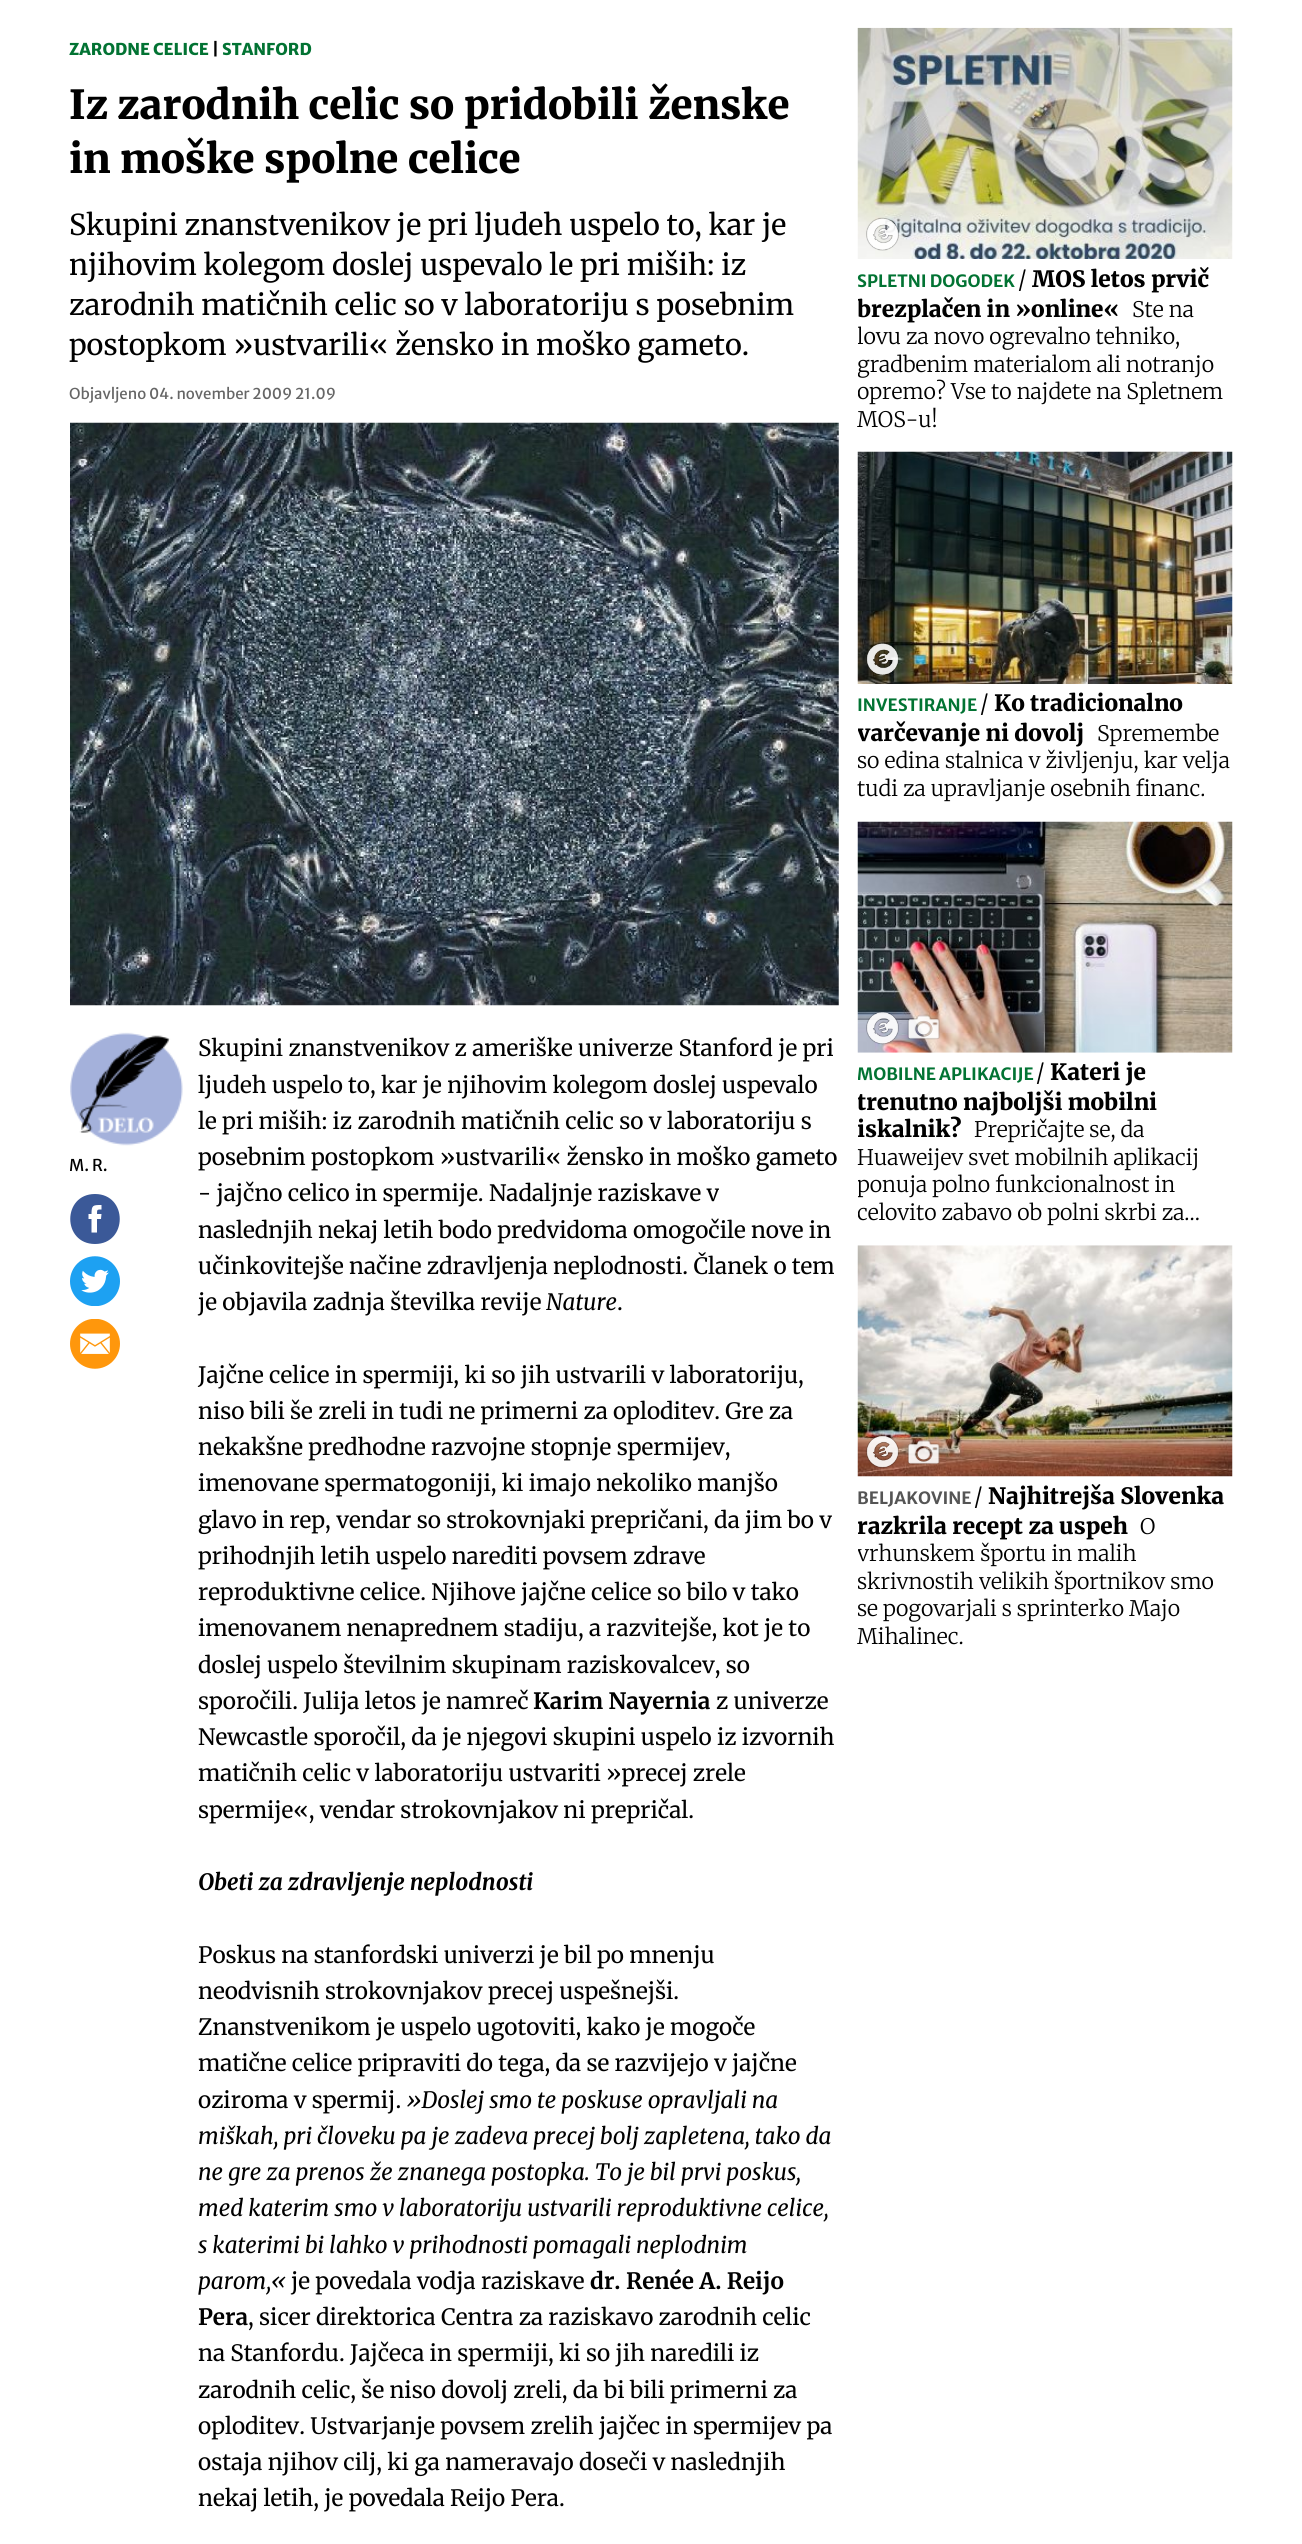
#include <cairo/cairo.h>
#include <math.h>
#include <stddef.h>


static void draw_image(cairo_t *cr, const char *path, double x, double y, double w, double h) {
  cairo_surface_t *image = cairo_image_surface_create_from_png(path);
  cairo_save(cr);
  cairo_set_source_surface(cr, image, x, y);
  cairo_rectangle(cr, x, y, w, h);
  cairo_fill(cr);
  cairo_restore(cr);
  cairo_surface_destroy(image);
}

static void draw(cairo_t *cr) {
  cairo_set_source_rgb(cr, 1, 1, 1);
  cairo_paint(cr);
  draw_image(cr, "images/1.png", 70, 422, 769, 584);
  draw_image(cr, "images/2.png", 70, 1032, 113, 114);
  cairo_set_source_rgb(cr, 59 / 255.0, 89 / 255.0, 152 / 255.0);
  cairo_new_path(cr);
  cairo_move_to(cr, 95, 1194);
  cairo_curve_to(cr, 62, 1194, 62, 1244, 95, 1244);
  cairo_curve_to(cr, 128, 1244, 128, 1194, 95, 1194);
  cairo_close_path(cr);
  cairo_fill(cr);
  cairo_set_source_rgb(cr, 1, 1, 1);
  cairo_new_path(cr);
  cairo_move_to(cr, 91.5, 1232.5);
  cairo_line_to(cr, 97, 1232.5);
  cairo_line_to(cr, 97, 1219);
  cairo_line_to(cr, 101, 1219);
  cairo_line_to(cr, 101.5, 1214);
  cairo_line_to(cr, 97, 1214);
  cairo_curve_to(cr, 97, 1209.5, 97, 1209.5, 101.5, 1209.5);
  cairo_line_to(cr, 101.5, 1205);
  cairo_curve_to(cr, 93, 1205, 91.5, 1205, 91.5, 1214);
  cairo_line_to(cr, 88.5, 1214);
  cairo_line_to(cr, 88.5, 1219);
  cairo_line_to(cr, 91.5, 1219);
  cairo_close_path(cr);
  cairo_fill(cr);
  draw_image(cr, "images/3.png", 70, 1256, 50, 50);
  draw_image(cr, "images/4.png", 70, 1319, 50, 50);
  draw_image(cr, "images/5.png", 857, 27, 376, 232);
  draw_image(cr, "images/6.png", 866, 217, 33, 34);
  draw_image(cr, "images/7.png", 857, 451, 376, 233);
  draw_image(cr, "images/8.png", 867, 643, 32, 33);
  draw_image(cr, "images/9.png", 857, 821, 376, 232);
  draw_image(cr, "images/10.png", 866, 1011, 33, 34);
  draw_image(cr, "images/11.png", 907, 1014, 33, 26);
  draw_image(cr, "images/12.png", 857, 1245, 376, 232);
  draw_image(cr, "images/13.png", 866, 1435, 33, 33);
  draw_image(cr, "images/14.png", 907, 1439, 33, 26);
  cairo_select_font_face(cr, "Merriweather Sans ExtraBold", CAIRO_FONT_SLANT_NORMAL, CAIRO_FONT_WEIGHT_NORMAL);
  cairo_set_font_size(cr, 16.25);
  cairo_set_source_rgb(cr, 2 / 255.0, 115 / 255.0, 51 / 255.0);
  cairo_move_to(cr, 69, 55);
  cairo_show_text(cr, "ZARODNE CELICE");
  cairo_set_source_rgb(cr, 0, 0, 0);
  cairo_move_to(cr, 212, 55);
  cairo_show_text(cr, "|");
  cairo_set_source_rgb(cr, 2 / 255.0, 115 / 255.0, 51 / 255.0);
  cairo_move_to(cr, 222, 55);
  cairo_show_text(cr, "STANFORD");
  cairo_select_font_face(cr, "Merriweather Black", CAIRO_FONT_SLANT_NORMAL, CAIRO_FONT_WEIGHT_NORMAL);
  cairo_set_font_size(cr, 40);
  cairo_set_source_rgb(cr, 0, 0, 0);
  cairo_move_to(cr, 69, 119);
  cairo_show_text(cr, "Iz zarodnih celic so pridobili ženske");
  cairo_move_to(cr, 69, 173);
  cairo_show_text(cr, "in moške spolne celice");
  cairo_select_font_face(cr, "Merriweather", CAIRO_FONT_SLANT_NORMAL, CAIRO_FONT_WEIGHT_NORMAL);
  cairo_set_font_size(cr, 28.75);
  cairo_move_to(cr, 69, 235);
  cairo_show_text(cr, "Skupini znanstvenikov je pri ljudeh uspelo to, kar je");
  cairo_move_to(cr, 69, 275);
  cairo_show_text(cr, "njihovim kolegom doslej uspevalo le pri miših: iz");
  cairo_move_to(cr, 69, 315);
  cairo_show_text(cr, "zarodnih matičnih celic so v laboratoriju s posebnim");
  cairo_move_to(cr, 69, 355);
  cairo_show_text(cr, "postopkom »ustvarili« žensko in moško gameto.");
  cairo_select_font_face(cr, "Merriweather Sans", CAIRO_FONT_SLANT_NORMAL, CAIRO_FONT_WEIGHT_NORMAL);
  cairo_set_font_size(cr, 15);
  cairo_set_source_rgb(cr, 102 / 255.0, 102 / 255.0, 102 / 255.0);
  cairo_move_to(cr, 69, 399);
  cairo_show_text(cr, "Objavljeno 04. november 2009 21.09");
  cairo_set_font_size(cr, 16.25);
  cairo_set_source_rgb(cr, 0, 0, 0);
  cairo_move_to(cr, 69, 1171);
  cairo_show_text(cr, "M. R.");
  cairo_select_font_face(cr, "Merriweather", CAIRO_FONT_SLANT_NORMAL, CAIRO_FONT_WEIGHT_NORMAL);
  cairo_set_font_size(cr, 22.5);
  cairo_move_to(cr, 198, 1056);
  cairo_show_text(cr, "Skupini znanstvenikov z ameriške univerze Stanford je pri");
  cairo_move_to(cr, 198, 1093);
  cairo_show_text(cr, "ljudeh uspelo to, kar je njihovim kolegom doslej uspevalo");
  cairo_move_to(cr, 198, 1129);
  cairo_show_text(cr, "le pri miših: iz zarodnih matičnih celic so v laboratoriju s");
  cairo_move_to(cr, 198, 1165);
  cairo_show_text(cr, "posebnim postopkom »ustvarili« žensko in moško gameto");
  cairo_move_to(cr, 198, 1201);
  cairo_show_text(cr, "- jajčno celico in spermije. Nadaljnje raziskave v");
  cairo_move_to(cr, 198, 1238);
  cairo_show_text(cr, "naslednjih nekaj letih bodo predvidoma omogočile nove in");
  cairo_move_to(cr, 198, 1274);
  cairo_show_text(cr, "učinkovitejše načine zdravljenja neplodnosti. Članek o tem");
  cairo_move_to(cr, 198, 1310);
  cairo_show_text(cr, "je objavila zadnja številka revije");
  cairo_select_font_face(cr, "Merriweather", CAIRO_FONT_SLANT_ITALIC, CAIRO_FONT_WEIGHT_NORMAL);
  cairo_move_to(cr, 546, 1310);
  cairo_show_text(cr, "Nature");
  cairo_select_font_face(cr, "Merriweather", CAIRO_FONT_SLANT_NORMAL, CAIRO_FONT_WEIGHT_NORMAL);
  cairo_move_to(cr, 617, 1310);
  cairo_show_text(cr, ".");
  cairo_move_to(cr, 198, 1383);
  cairo_show_text(cr, "Jajčne celice in spermiji, ki so jih ustvarili v laboratoriju,");
  cairo_move_to(cr, 198, 1419);
  cairo_show_text(cr, "niso bili še zreli in tudi ne primerni za oploditev. Gre za");
  cairo_move_to(cr, 198, 1455);
  cairo_show_text(cr, "nekakšne predhodne razvojne stopnje spermijev,");
  cairo_move_to(cr, 198, 1491);
  cairo_show_text(cr, "imenovane spermatogoniji, ki imajo nekoliko manjšo");
  cairo_move_to(cr, 198, 1528);
  cairo_show_text(cr, "glavo in rep, vendar so strokovnjaki prepričani, da jim bo v");
  cairo_move_to(cr, 198, 1564);
  cairo_show_text(cr, "prihodnjih letih uspelo narediti povsem zdrave");
  cairo_move_to(cr, 198, 1600);
  cairo_show_text(cr, "reproduktivne celice. Njihove jajčne celice so bilo v tako");
  cairo_move_to(cr, 198, 1636);
  cairo_show_text(cr, "imenovanem nenaprednem stadiju, a razvitejše, kot je to");
  cairo_move_to(cr, 198, 1673);
  cairo_show_text(cr, "doslej uspelo številnim skupinam raziskovalcev, so");
  cairo_move_to(cr, 198, 1709);
  cairo_show_text(cr, "sporočili. Julija letos je namreč");
  cairo_select_font_face(cr, "Merriweather", CAIRO_FONT_SLANT_NORMAL, CAIRO_FONT_WEIGHT_BOLD);
  cairo_move_to(cr, 533, 1709);
  cairo_show_text(cr, "Karim Nayernia");
  cairo_select_font_face(cr, "Merriweather", CAIRO_FONT_SLANT_NORMAL, CAIRO_FONT_WEIGHT_NORMAL);
  cairo_move_to(cr, 716, 1709);
  cairo_show_text(cr, "z univerze");
  cairo_move_to(cr, 198, 1745);
  cairo_show_text(cr, "Newcastle sporočil, da je njegovi skupini uspelo iz izvornih");
  cairo_move_to(cr, 198, 1781);
  cairo_show_text(cr, "matičnih celic v laboratoriju ustvariti »precej zrele");
  cairo_move_to(cr, 198, 1818);
  cairo_show_text(cr, "spermije«, vendar strokovnjakov ni prepričal.");
  cairo_select_font_face(cr, "Merriweather", CAIRO_FONT_SLANT_ITALIC, CAIRO_FONT_WEIGHT_BOLD);
  cairo_move_to(cr, 198, 1890);
  cairo_show_text(cr, "Obeti za zdravljenje neplodnosti");
  cairo_select_font_face(cr, "Merriweather", CAIRO_FONT_SLANT_NORMAL, CAIRO_FONT_WEIGHT_NORMAL);
  cairo_move_to(cr, 198, 1963);
  cairo_show_text(cr, "Poskus na stanfordski univerzi je bil po mnenju");
  cairo_move_to(cr, 198, 1999);
  cairo_show_text(cr, "neodvisnih strokovnjakov precej uspešnejši.");
  cairo_move_to(cr, 198, 2035);
  cairo_show_text(cr, "Znanstvenikom je uspelo ugotoviti, kako je mogoče");
  cairo_move_to(cr, 198, 2071);
  cairo_show_text(cr, "matične celice pripraviti do tega, da se razvijejo v jajčne");
  cairo_move_to(cr, 198, 2108);
  cairo_show_text(cr, "oziroma v spermij.");
  cairo_select_font_face(cr, "Merriweather", CAIRO_FONT_SLANT_ITALIC, CAIRO_FONT_WEIGHT_NORMAL);
  cairo_move_to(cr, 406, 2108);
  cairo_show_text(cr, "»Doslej smo te poskuse opravljali na");
  cairo_move_to(cr, 198, 2144);
  cairo_show_text(cr, "miškah, pri človeku pa je zadeva precej bolj zapletena, tako da");
  cairo_move_to(cr, 198, 2180);
  cairo_show_text(cr, "ne gre za prenos že znanega postopka. To je bil prvi poskus,");
  cairo_move_to(cr, 198, 2216);
  cairo_show_text(cr, "med katerim smo v laboratoriju ustvarili reproduktivne celice,");
  cairo_move_to(cr, 198, 2253);
  cairo_show_text(cr, "s katerimi bi lahko v prihodnosti pomagali neplodnim");
  cairo_move_to(cr, 198, 2289);
  cairo_show_text(cr, "parom,«");
  cairo_select_font_face(cr, "Merriweather", CAIRO_FONT_SLANT_NORMAL, CAIRO_FONT_WEIGHT_NORMAL);
  cairo_move_to(cr, 291, 2289);
  cairo_show_text(cr, "je povedala vodja raziskave");
  cairo_select_font_face(cr, "Merriweather", CAIRO_FONT_SLANT_NORMAL, CAIRO_FONT_WEIGHT_BOLD);
  cairo_move_to(cr, 590, 2289);
  cairo_show_text(cr, "dr. Renée A. Reijo");
  cairo_move_to(cr, 198, 2325);
  cairo_show_text(cr, "Pera");
  cairo_select_font_face(cr, "Merriweather", CAIRO_FONT_SLANT_NORMAL, CAIRO_FONT_WEIGHT_NORMAL);
  cairo_move_to(cr, 248, 2325);
  cairo_show_text(cr, ", sicer direktorica Centra za raziskavo zarodnih celic");
  cairo_move_to(cr, 198, 2361);
  cairo_show_text(cr, "na Stanfordu. Jajčeca in spermiji, ki so jih naredili iz");
  cairo_move_to(cr, 198, 2398);
  cairo_show_text(cr, "zarodnih celic, še niso dovolj zreli, da bi bili primerni za");
  cairo_move_to(cr, 198, 2434);
  cairo_show_text(cr, "oploditev. Ustvarjanje povsem zrelih jajčec in spermijev pa");
  cairo_move_to(cr, 198, 2470);
  cairo_show_text(cr, "ostaja njihov cilj, ki ga nameravajo doseči v naslednjih");
  cairo_move_to(cr, 198, 2506);
  cairo_show_text(cr, "nekaj letih, je povedala Reijo Pera.");
  cairo_select_font_face(cr, "Merriweather Sans", CAIRO_FONT_SLANT_NORMAL, CAIRO_FONT_WEIGHT_BOLD);
  cairo_set_font_size(cr, 16.9);
  cairo_set_source_rgb(cr, 2 / 255.0, 115 / 255.0, 51 / 255.0);
  cairo_move_to(cr, 857, 287);
  cairo_show_text(cr, "SPLETNI DOGODEK");
  cairo_select_font_face(cr, "Merriweather Light", CAIRO_FONT_SLANT_NORMAL, CAIRO_FONT_WEIGHT_NORMAL);
  cairo_set_font_size(cr, 22.5);
  cairo_set_source_rgb(cr, 0, 0, 0);
  cairo_move_to(cr, 1018, 287);
  cairo_show_text(cr, "/");
  cairo_select_font_face(cr, "Merriweather Black", CAIRO_FONT_SLANT_NORMAL, CAIRO_FONT_WEIGHT_NORMAL);
  cairo_move_to(cr, 1032, 287);
  cairo_show_text(cr, "MOS letos prvič");
  cairo_save(cr);
  cairo_rectangle(cr, 858, 28, 375, 405);
  cairo_clip(cr);
  cairo_move_to(cr, 857, 317);
  cairo_show_text(cr, "brezplačen in »online«");
  cairo_restore(cr);
  cairo_select_font_face(cr, "Merriweather Light", CAIRO_FONT_SLANT_NORMAL, CAIRO_FONT_WEIGHT_NORMAL);
  cairo_set_font_size(cr, 21.4);
  cairo_move_to(cr, 1132, 317);
  cairo_show_text(cr, "Ste na");
  cairo_save(cr);
  cairo_rectangle(cr, 858, 28, 375, 405);
  cairo_clip(cr);
  cairo_move_to(cr, 857, 344);
  cairo_show_text(cr, "lovu za novo ogrevalno tehniko,");
  cairo_move_to(cr, 857, 372);
  cairo_show_text(cr, "gradbenim materialom ali notranjo");
  cairo_move_to(cr, 857, 399);
  cairo_show_text(cr, "opremo? Vse to najdete na Spletnem");
  cairo_restore(cr);
  cairo_move_to(cr, 857, 427);
  cairo_show_text(cr, "MOS-u!");
  cairo_select_font_face(cr, "Merriweather Sans", CAIRO_FONT_SLANT_NORMAL, CAIRO_FONT_WEIGHT_BOLD);
  cairo_set_font_size(cr, 16.9);
  cairo_set_source_rgb(cr, 2 / 255.0, 115 / 255.0, 51 / 255.0);
  cairo_move_to(cr, 857, 711);
  cairo_show_text(cr, "INVESTIRANJE");
  cairo_select_font_face(cr, "Merriweather Light", CAIRO_FONT_SLANT_NORMAL, CAIRO_FONT_WEIGHT_NORMAL);
  cairo_set_font_size(cr, 22.5);
  cairo_set_source_rgb(cr, 0, 0, 0);
  cairo_move_to(cr, 980, 711);
  cairo_show_text(cr, "/");
  cairo_select_font_face(cr, "Merriweather Black", CAIRO_FONT_SLANT_NORMAL, CAIRO_FONT_WEIGHT_NORMAL);
  cairo_move_to(cr, 994, 711);
  cairo_show_text(cr, "Ko tradicionalno");
  cairo_save(cr);
  cairo_rectangle(cr, 858, 451, 375, 352);
  cairo_clip(cr);
  cairo_move_to(cr, 857, 741);
  cairo_show_text(cr, "varčevanje ni dovolj");
  cairo_restore(cr);
  cairo_select_font_face(cr, "Merriweather Light", CAIRO_FONT_SLANT_NORMAL, CAIRO_FONT_WEIGHT_NORMAL);
  cairo_set_font_size(cr, 21.4);
  cairo_move_to(cr, 1097, 741);
  cairo_show_text(cr, "Spremembe");
  cairo_save(cr);
  cairo_rectangle(cr, 858, 451, 375, 352);
  cairo_clip(cr);
  cairo_move_to(cr, 857, 768);
  cairo_show_text(cr, "so edina stalnica v življenju, kar velja");
  cairo_restore(cr);
  cairo_move_to(cr, 857, 796);
  cairo_show_text(cr, "tudi za upravljanje osebnih financ.");
  cairo_save(cr);
  cairo_rectangle(cr, 858, 821, 375, 405);
  cairo_clip(cr);
  cairo_select_font_face(cr, "Merriweather Sans", CAIRO_FONT_SLANT_NORMAL, CAIRO_FONT_WEIGHT_BOLD);
  cairo_set_font_size(cr, 16.9);
  cairo_set_source_rgb(cr, 2 / 255.0, 115 / 255.0, 51 / 255.0);
  cairo_move_to(cr, 857, 1080);
  cairo_show_text(cr, "MOBILNE APLIKACIJE");
  cairo_restore(cr);
  cairo_set_font_size(cr, 22.5);
  cairo_move_to(cr, 1036, 1080);
  cairo_show_text(cr, "/");
  cairo_select_font_face(cr, "Merriweather Black", CAIRO_FONT_SLANT_NORMAL, CAIRO_FONT_WEIGHT_NORMAL);
  cairo_move_to(cr, 1050, 1080);
  cairo_show_text(cr, "Kateri je");
  cairo_save(cr);
  cairo_rectangle(cr, 858, 821, 375, 405);
  cairo_clip(cr);
  cairo_move_to(cr, 857, 1110);
  cairo_show_text(cr, "trenutno najboljši mobilni");
  cairo_move_to(cr, 857, 1137);
  cairo_show_text(cr, "iskalnik?");
  cairo_restore(cr);
  cairo_select_font_face(cr, "Merriweather Light", CAIRO_FONT_SLANT_NORMAL, CAIRO_FONT_WEIGHT_NORMAL);
  cairo_set_font_size(cr, 21.4);
  cairo_move_to(cr, 974, 1137);
  cairo_show_text(cr, "Prepričajte se, da");
  cairo_move_to(cr, 857, 1165);
  cairo_show_text(cr, "Huaweijev svet mobilnih aplikacij");
  cairo_save(cr);
  cairo_rectangle(cr, 858, 821, 375, 405);
  cairo_clip(cr);
  cairo_move_to(cr, 857, 1192);
  cairo_show_text(cr, "ponuja polno funkcionalnost in");
  cairo_move_to(cr, 857, 1220);
  cairo_show_text(cr, "celovito zabavo ob polni skrbi za...");
  cairo_restore(cr);
  cairo_select_font_face(cr, "Merriweather Sans", CAIRO_FONT_SLANT_NORMAL, CAIRO_FONT_WEIGHT_BOLD);
  cairo_set_font_size(cr, 16.9);
  cairo_set_source_rgb(cr, 85 / 255.0, 85 / 255.0, 85 / 255.0);
  cairo_move_to(cr, 857, 1504);
  cairo_show_text(cr, "BELJAKOVINE");
  cairo_select_font_face(cr, "Merriweather Light", CAIRO_FONT_SLANT_NORMAL, CAIRO_FONT_WEIGHT_NORMAL);
  cairo_set_font_size(cr, 22.5);
  cairo_set_source_rgb(cr, 0, 0, 0);
  cairo_move_to(cr, 974, 1504);
  cairo_show_text(cr, "/");
  cairo_select_font_face(cr, "Merriweather Black", CAIRO_FONT_SLANT_NORMAL, CAIRO_FONT_WEIGHT_NORMAL);
  cairo_move_to(cr, 988, 1504);
  cairo_show_text(cr, "Najhitrejša Slovenka");
  cairo_save(cr);
  cairo_rectangle(cr, 858, 1245, 375, 405);
  cairo_clip(cr);
  cairo_move_to(cr, 857, 1534);
  cairo_show_text(cr, "razkrila recept za uspeh");
  cairo_restore(cr);
  cairo_select_font_face(cr, "Merriweather Light", CAIRO_FONT_SLANT_NORMAL, CAIRO_FONT_WEIGHT_NORMAL);
  cairo_set_font_size(cr, 21.4);
  cairo_move_to(cr, 1140, 1534);
  cairo_show_text(cr, "O");
  cairo_save(cr);
  cairo_rectangle(cr, 858, 1245, 375, 405);
  cairo_clip(cr);
  cairo_move_to(cr, 857, 1561);
  cairo_show_text(cr, "vrhunskem športu in malih");
  cairo_move_to(cr, 857, 1589);
  cairo_show_text(cr, "skrivnostih velikih športnikov smo");
  cairo_move_to(cr, 857, 1616);
  cairo_show_text(cr, "se pogovarjali s sprinterko Majo");
  cairo_restore(cr);
  cairo_move_to(cr, 857, 1644);
  cairo_show_text(cr, "Mihalinec.");
}

int main(void) {
  cairo_surface_t *surface = cairo_image_surface_create(CAIRO_FORMAT_RGB24, 1302, 2544);
  cairo_t *cr = cairo_create(surface);
  cairo_font_options_t *options = cairo_font_options_create();
  cairo_font_options_set_hint_metrics(options, CAIRO_HINT_METRICS_OFF);
  cairo_font_options_set_hint_style(options, CAIRO_HINT_STYLE_NONE);
  cairo_set_font_options(cr, options);
  cairo_set_miter_limit(cr, 4);
  draw(cr);
  cairo_surface_write_to_png(surface, "out.png");
  cairo_font_options_destroy(options);
  cairo_destroy(cr);
  cairo_surface_destroy(surface);
  return 0;
}
